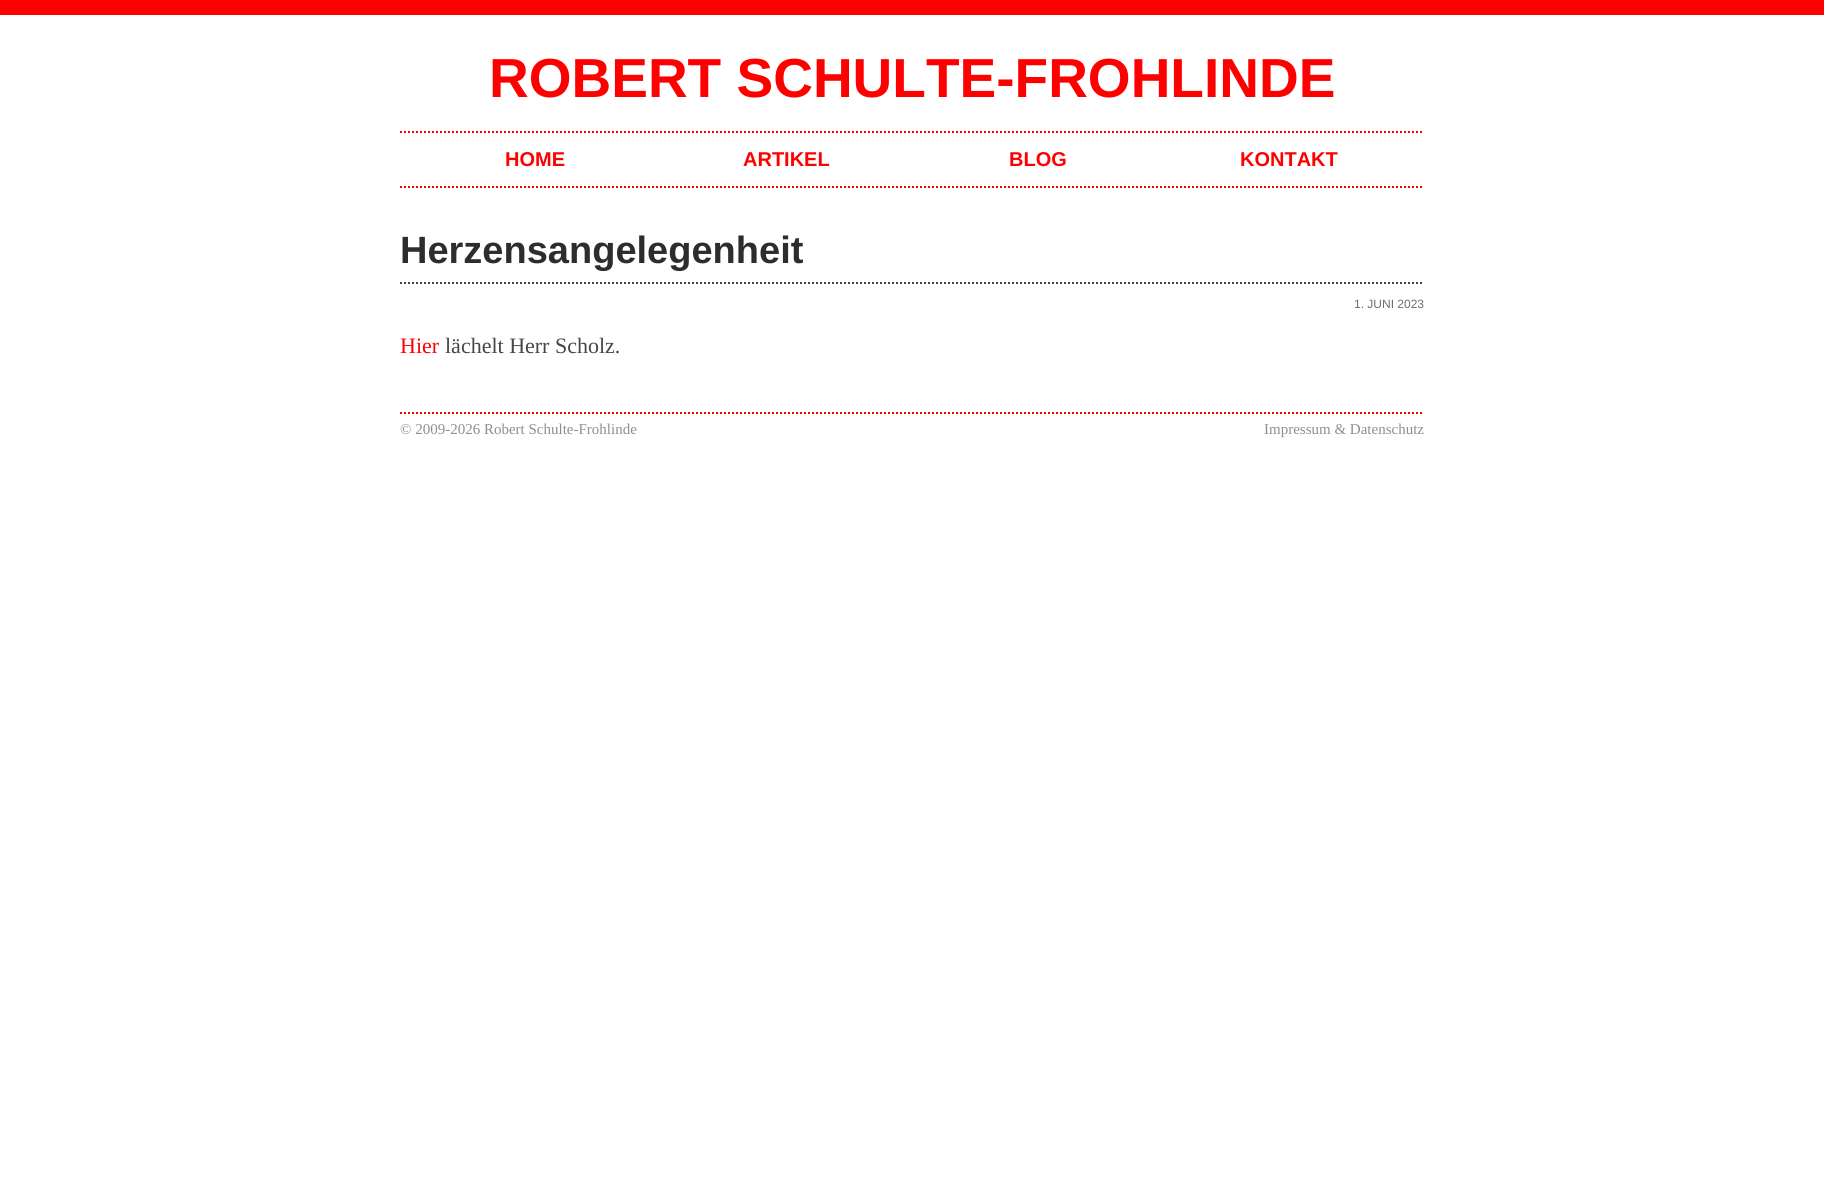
#include <cairo/cairo.h>
#include <math.h>
#include <stddef.h>


static void draw(cairo_t *cr) {
  cairo_set_source_rgb(cr, 1, 1, 1);
  cairo_paint(cr);
  cairo_set_source_rgb(cr, 1, 0, 0);
  cairo_rectangle(cr, 0, 0, 1824, 15);
  cairo_fill(cr);
  cairo_new_path(cr);
  cairo_move_to(cr, 400, 132);
  cairo_line_to(cr, 1424, 132);
  cairo_set_dash(cr, (double[]){2, 2}, 2, 0);
  cairo_stroke(cr);
  cairo_new_path(cr);
  cairo_move_to(cr, 400, 187);
  cairo_line_to(cr, 1424, 187);
  cairo_stroke(cr);
  cairo_new_path(cr);
  cairo_move_to(cr, 400, 283);
  cairo_line_to(cr, 1424, 283);
  cairo_set_source_rgb(cr, 70 / 255.0, 70 / 255.0, 70 / 255.0);
  cairo_stroke(cr);
  cairo_new_path(cr);
  cairo_move_to(cr, 400, 413);
  cairo_line_to(cr, 1424, 413);
  cairo_set_source_rgb(cr, 1, 0, 0);
  cairo_stroke(cr);
  cairo_select_font_face(cr, "Liberation Sans", CAIRO_FONT_SLANT_NORMAL, CAIRO_FONT_WEIGHT_BOLD);
  cairo_set_font_size(cr, 55);
  cairo_move_to(cr, 489, 97);
  cairo_show_text(cr, "ROBERT SCHULTE-FROHLINDE");
  cairo_set_font_size(cr, 20);
  cairo_move_to(cr, 505, 166);
  cairo_show_text(cr, "HOME");
  cairo_move_to(cr, 743, 166);
  cairo_show_text(cr, "ARTIKEL");
  cairo_move_to(cr, 1009, 166);
  cairo_show_text(cr, "BLOG");
  cairo_move_to(cr, 1240, 166);
  cairo_show_text(cr, "KONTAKT");
  cairo_set_font_size(cr, 38);
  cairo_set_source_rgb(cr, 45 / 255.0, 45 / 255.0, 45 / 255.0);
  cairo_move_to(cr, 400, 263);
  cairo_show_text(cr, "Herzensangelegenheit");
  cairo_select_font_face(cr, "Liberation Sans", CAIRO_FONT_SLANT_NORMAL, CAIRO_FONT_WEIGHT_NORMAL);
  cairo_set_font_size(cr, 12);
  cairo_set_source_rgb(cr, 109 / 255.0, 109 / 255.0, 109 / 255.0);
  cairo_move_to(cr, 1354, 308);
  cairo_show_text(cr, "1. JUNI 2023");
  cairo_select_font_face(cr, "Liberation Serif", CAIRO_FONT_SLANT_NORMAL, CAIRO_FONT_WEIGHT_NORMAL);
  cairo_set_font_size(cr, 22);
  cairo_set_source_rgb(cr, 1, 0, 0);
  cairo_move_to(cr, 400, 353);
  cairo_show_text(cr, "Hier");
  cairo_set_source_rgb(cr, 70 / 255.0, 70 / 255.0, 70 / 255.0);
  cairo_move_to(cr, 445, 353);
  cairo_show_text(cr, "lächelt Herr Scholz.");
  cairo_set_font_size(cr, 15);
  cairo_set_source_rgb(cr, 142 / 255.0, 142 / 255.0, 142 / 255.0);
  cairo_move_to(cr, 400, 434);
  cairo_show_text(cr, "© 2009-2026 Robert Schulte-Frohlinde");
  cairo_move_to(cr, 1264, 434);
  cairo_show_text(cr, "Impressum & Datenschutz");
}

int main(void) {
  cairo_surface_t *surface = cairo_image_surface_create(CAIRO_FORMAT_RGB24, 1824, 1187);
  cairo_t *cr = cairo_create(surface);
  cairo_font_options_t *options = cairo_font_options_create();
  cairo_font_options_set_hint_metrics(options, CAIRO_HINT_METRICS_OFF);
  cairo_font_options_set_hint_style(options, CAIRO_HINT_STYLE_NONE);
  cairo_set_font_options(cr, options);
  cairo_set_miter_limit(cr, 4);
  draw(cr);
  cairo_surface_write_to_png(surface, "out.png");
  cairo_font_options_destroy(options);
  cairo_destroy(cr);
  cairo_surface_destroy(surface);
  return 0;
}
